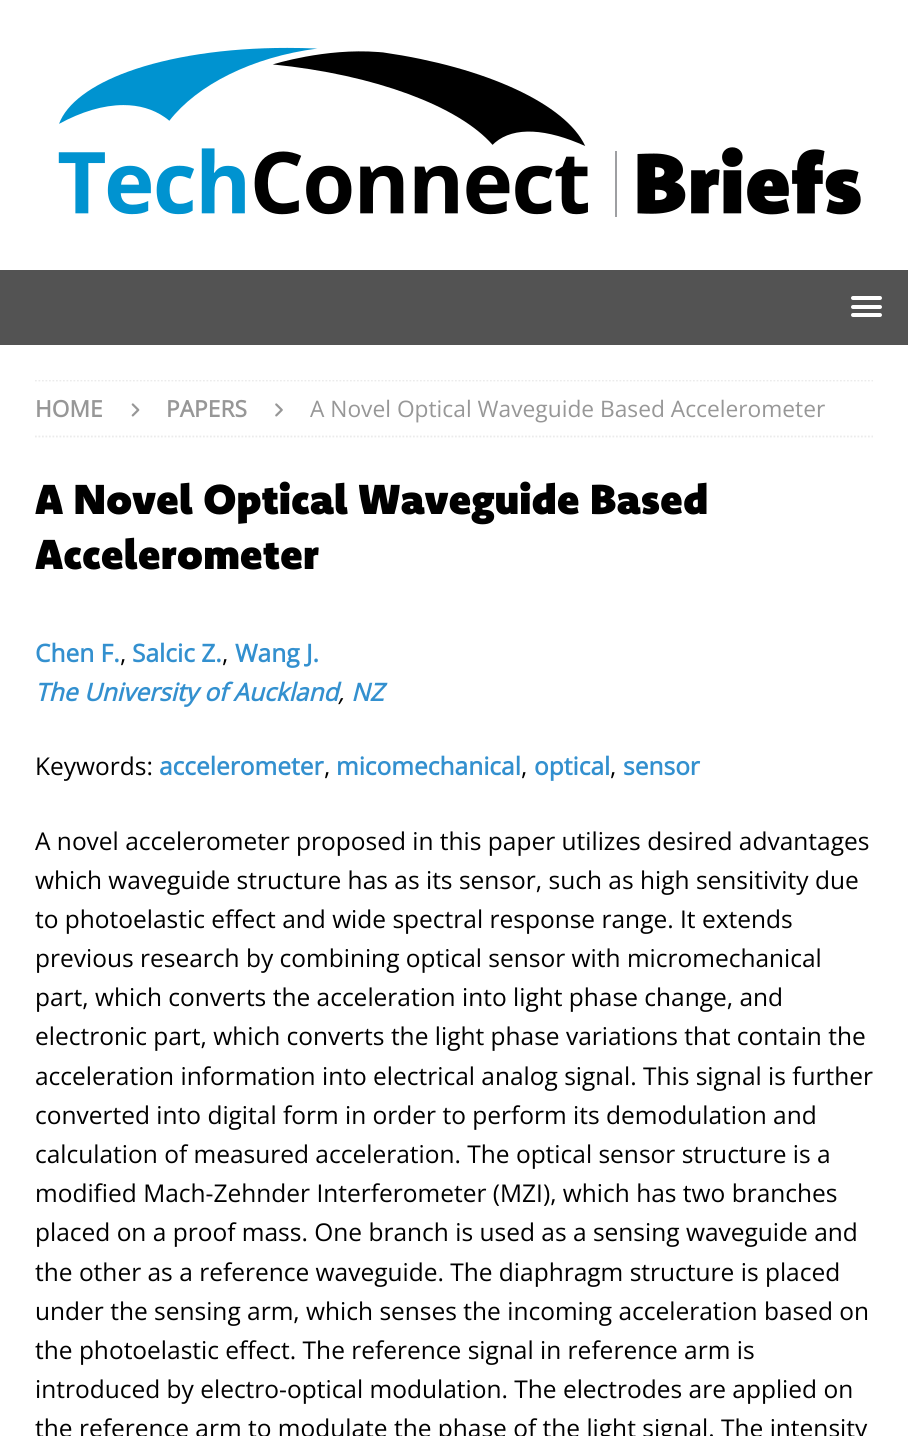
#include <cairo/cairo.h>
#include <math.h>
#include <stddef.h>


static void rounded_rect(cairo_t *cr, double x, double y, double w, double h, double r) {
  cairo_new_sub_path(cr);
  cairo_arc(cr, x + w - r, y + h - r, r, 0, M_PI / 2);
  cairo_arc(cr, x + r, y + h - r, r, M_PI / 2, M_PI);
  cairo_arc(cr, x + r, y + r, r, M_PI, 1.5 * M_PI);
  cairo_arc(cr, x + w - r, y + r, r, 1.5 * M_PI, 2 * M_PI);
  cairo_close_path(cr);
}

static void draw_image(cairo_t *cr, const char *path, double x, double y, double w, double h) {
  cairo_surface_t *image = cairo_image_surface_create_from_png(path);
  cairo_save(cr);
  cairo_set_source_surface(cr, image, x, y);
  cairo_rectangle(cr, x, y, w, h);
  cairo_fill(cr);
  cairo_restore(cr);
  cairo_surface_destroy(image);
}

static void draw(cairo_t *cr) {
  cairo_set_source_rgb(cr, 1, 1, 1);
  cairo_paint(cr);
  draw_image(cr, "images/1.png", 58, 47, 803, 170);
  cairo_set_source_rgb(cr, 83 / 255.0, 83 / 255.0, 83 / 255.0);
  cairo_rectangle(cr, 0, 270, 908, 75);
  cairo_fill(cr);
  cairo_set_source_rgb(cr, 1, 1, 1);
  rounded_rect(cr, 851, 296, 31, 4, 2);
  cairo_fill(cr);
  rounded_rect(cr, 851, 305, 31, 4, 2);
  cairo_fill(cr);
  rounded_rect(cr, 851, 313, 31, 4, 2);
  cairo_fill(cr);
  cairo_save(cr);
  cairo_rectangle(cr, 35, 380, 838, 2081);
  cairo_clip(cr);
  cairo_new_path(cr);
  cairo_move_to(cr, 35, 380.5);
  cairo_line_to(cr, 873, 380.5);
  cairo_set_source_rgb(cr, 235 / 255.0, 235 / 255.0, 235 / 255.0);
  cairo_set_line_width(cr, 1.8);
  cairo_set_dash(cr, (double[]){1.75, 1.75}, 2, 0);
  cairo_stroke(cr);
  cairo_restore(cr);
  cairo_new_path(cr);
  cairo_move_to(cr, 35, 436.5);
  cairo_line_to(cr, 873, 436.5);
  cairo_set_source_rgb(cr, 235 / 255.0, 235 / 255.0, 235 / 255.0);
  cairo_set_line_width(cr, 1.8);
  cairo_set_dash(cr, (double[]){1.75, 1.75}, 2, 0);
  cairo_stroke(cr);
  draw_image(cr, "images/2.png", 131, 403, 9, 14);
  draw_image(cr, "images/3.png", 275, 403, 8, 14);
  cairo_select_font_face(cr, "Open Sans", CAIRO_FONT_SLANT_NORMAL, CAIRO_FONT_WEIGHT_BOLD);
  cairo_set_font_size(cr, 22.75);
  cairo_set_source_rgb(cr, 151 / 255.0, 151 / 255.0, 151 / 255.0);
  cairo_move_to(cr, 35, 417);
  cairo_show_text(cr, "HOME");
  cairo_move_to(cr, 166, 417);
  cairo_show_text(cr, "PAPERS");
  cairo_select_font_face(cr, "Open Sans", CAIRO_FONT_SLANT_NORMAL, CAIRO_FONT_WEIGHT_NORMAL);
  cairo_move_to(cr, 310, 417);
  cairo_show_text(cr, "A Novel Optical Waveguide Based Accelerometer");
  cairo_select_font_face(cr, "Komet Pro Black", CAIRO_FONT_SLANT_NORMAL, CAIRO_FONT_WEIGHT_NORMAL);
  cairo_set_font_size(cr, 42);
  cairo_set_source_rgb(cr, 0, 0, 0);
  cairo_move_to(cr, 35, 514);
  cairo_show_text(cr, "A Novel Optical Waveguide Based");
  cairo_move_to(cr, 35, 569);
  cairo_show_text(cr, "Accelerometer");
  cairo_select_font_face(cr, "Open Sans", CAIRO_FONT_SLANT_NORMAL, CAIRO_FONT_WEIGHT_BOLD);
  cairo_set_font_size(cr, 24.5);
  cairo_set_source_rgb(cr, 51 / 255.0, 144 / 255.0, 207 / 255.0);
  cairo_move_to(cr, 35, 662);
  cairo_show_text(cr, "Chen F.");
  cairo_select_font_face(cr, "Open Sans", CAIRO_FONT_SLANT_NORMAL, CAIRO_FONT_WEIGHT_NORMAL);
  cairo_set_source_rgb(cr, 0, 0, 0);
  cairo_move_to(cr, 120, 662);
  cairo_show_text(cr, ",");
  cairo_select_font_face(cr, "Open Sans", CAIRO_FONT_SLANT_NORMAL, CAIRO_FONT_WEIGHT_BOLD);
  cairo_set_source_rgb(cr, 51 / 255.0, 144 / 255.0, 207 / 255.0);
  cairo_move_to(cr, 132, 662);
  cairo_show_text(cr, "Salcic Z.");
  cairo_select_font_face(cr, "Open Sans", CAIRO_FONT_SLANT_NORMAL, CAIRO_FONT_WEIGHT_NORMAL);
  cairo_set_source_rgb(cr, 0, 0, 0);
  cairo_move_to(cr, 222, 662);
  cairo_show_text(cr, ",");
  cairo_select_font_face(cr, "Open Sans", CAIRO_FONT_SLANT_NORMAL, CAIRO_FONT_WEIGHT_BOLD);
  cairo_set_source_rgb(cr, 51 / 255.0, 144 / 255.0, 207 / 255.0);
  cairo_move_to(cr, 235, 662);
  cairo_show_text(cr, "Wang J.");
  cairo_select_font_face(cr, "Open Sans", CAIRO_FONT_SLANT_ITALIC, CAIRO_FONT_WEIGHT_BOLD);
  cairo_move_to(cr, 35, 701);
  cairo_show_text(cr, "The University of Auckland");
  cairo_move_to(cr, 351, 701);
  cairo_show_text(cr, "NZ");
  cairo_select_font_face(cr, "Open Sans", CAIRO_FONT_SLANT_ITALIC, CAIRO_FONT_WEIGHT_NORMAL);
  cairo_set_source_rgb(cr, 0, 0, 0);
  cairo_move_to(cr, 338, 701);
  cairo_show_text(cr, ",");
  cairo_select_font_face(cr, "Open Sans", CAIRO_FONT_SLANT_NORMAL, CAIRO_FONT_WEIGHT_NORMAL);
  cairo_move_to(cr, 35, 775);
  cairo_show_text(cr, "Keywords:");
  cairo_select_font_face(cr, "Open Sans", CAIRO_FONT_SLANT_NORMAL, CAIRO_FONT_WEIGHT_BOLD);
  cairo_set_source_rgb(cr, 51 / 255.0, 144 / 255.0, 207 / 255.0);
  cairo_move_to(cr, 159, 775);
  cairo_show_text(cr, "accelerometer");
  cairo_select_font_face(cr, "Open Sans", CAIRO_FONT_SLANT_NORMAL, CAIRO_FONT_WEIGHT_NORMAL);
  cairo_set_source_rgb(cr, 0, 0, 0);
  cairo_move_to(cr, 324, 775);
  cairo_show_text(cr, ",");
  cairo_select_font_face(cr, "Open Sans", CAIRO_FONT_SLANT_NORMAL, CAIRO_FONT_WEIGHT_BOLD);
  cairo_set_source_rgb(cr, 51 / 255.0, 144 / 255.0, 207 / 255.0);
  cairo_move_to(cr, 336, 775);
  cairo_show_text(cr, "micomechanical");
  cairo_select_font_face(cr, "Open Sans", CAIRO_FONT_SLANT_NORMAL, CAIRO_FONT_WEIGHT_NORMAL);
  cairo_set_source_rgb(cr, 0, 0, 0);
  cairo_move_to(cr, 521, 775);
  cairo_show_text(cr, ",");
  cairo_select_font_face(cr, "Open Sans", CAIRO_FONT_SLANT_NORMAL, CAIRO_FONT_WEIGHT_BOLD);
  cairo_set_source_rgb(cr, 51 / 255.0, 144 / 255.0, 207 / 255.0);
  cairo_move_to(cr, 534, 775);
  cairo_show_text(cr, "optical");
  cairo_select_font_face(cr, "Open Sans", CAIRO_FONT_SLANT_NORMAL, CAIRO_FONT_WEIGHT_NORMAL);
  cairo_set_source_rgb(cr, 0, 0, 0);
  cairo_move_to(cr, 610, 775);
  cairo_show_text(cr, ",");
  cairo_select_font_face(cr, "Open Sans", CAIRO_FONT_SLANT_NORMAL, CAIRO_FONT_WEIGHT_BOLD);
  cairo_set_source_rgb(cr, 51 / 255.0, 144 / 255.0, 207 / 255.0);
  cairo_move_to(cr, 623, 775);
  cairo_show_text(cr, "sensor");
  cairo_select_font_face(cr, "Open Sans", CAIRO_FONT_SLANT_NORMAL, CAIRO_FONT_WEIGHT_NORMAL);
  cairo_set_source_rgb(cr, 0, 0, 0);
  cairo_move_to(cr, 35, 850);
  cairo_show_text(cr, "A novel accelerometer proposed in this paper utilizes desired advantages");
  cairo_move_to(cr, 35, 889);
  cairo_show_text(cr, "which waveguide structure has as its sensor, such as high sensitivity due");
  cairo_move_to(cr, 35, 928);
  cairo_show_text(cr, "to photoelastic effect and wide spectral response range. It extends");
  cairo_move_to(cr, 35, 967);
  cairo_show_text(cr, "previous research by combining optical sensor with micromechanical");
  cairo_move_to(cr, 35, 1006);
  cairo_show_text(cr, "part, which converts the acceleration into light phase change, and");
  cairo_move_to(cr, 35, 1045);
  cairo_show_text(cr, "electronic part, which converts the light phase variations that contain the");
  cairo_move_to(cr, 35, 1085);
  cairo_show_text(cr, "acceleration information into electrical analog signal. This signal is further");
  cairo_move_to(cr, 35, 1124);
  cairo_show_text(cr, "converted into digital form in order to perform its demodulation and");
  cairo_move_to(cr, 35, 1163);
  cairo_show_text(cr, "calculation of measured acceleration. The optical sensor structure is a");
  cairo_move_to(cr, 35, 1202);
  cairo_show_text(cr, "modified Mach-Zehnder Interferometer (MZI), which has two branches");
  cairo_move_to(cr, 35, 1241);
  cairo_show_text(cr, "placed on a proof mass. One branch is used as a sensing waveguide and");
  cairo_move_to(cr, 35, 1281);
  cairo_show_text(cr, "the other as a reference waveguide. The diaphragm structure is placed");
  cairo_move_to(cr, 35, 1320);
  cairo_show_text(cr, "under the sensing arm, which senses the incoming acceleration based on");
  cairo_move_to(cr, 35, 1359);
  cairo_show_text(cr, "the photoelastic effect. The reference signal in reference arm is");
  cairo_move_to(cr, 35, 1398);
  cairo_show_text(cr, "introduced by electro-optical modulation. The electrodes are applied on");
  cairo_move_to(cr, 35, 1437);
  cairo_show_text(cr, "the reference arm to modulate the phase of the light signal. The intensity");
}

int main(void) {
  cairo_surface_t *surface = cairo_image_surface_create(CAIRO_FORMAT_RGB24, 908, 1436);
  cairo_t *cr = cairo_create(surface);
  cairo_font_options_t *options = cairo_font_options_create();
  cairo_font_options_set_hint_metrics(options, CAIRO_HINT_METRICS_OFF);
  cairo_font_options_set_hint_style(options, CAIRO_HINT_STYLE_NONE);
  cairo_set_font_options(cr, options);
  cairo_set_miter_limit(cr, 4);
  draw(cr);
  cairo_surface_write_to_png(surface, "out.png");
  cairo_font_options_destroy(options);
  cairo_destroy(cr);
  cairo_surface_destroy(surface);
  return 0;
}
